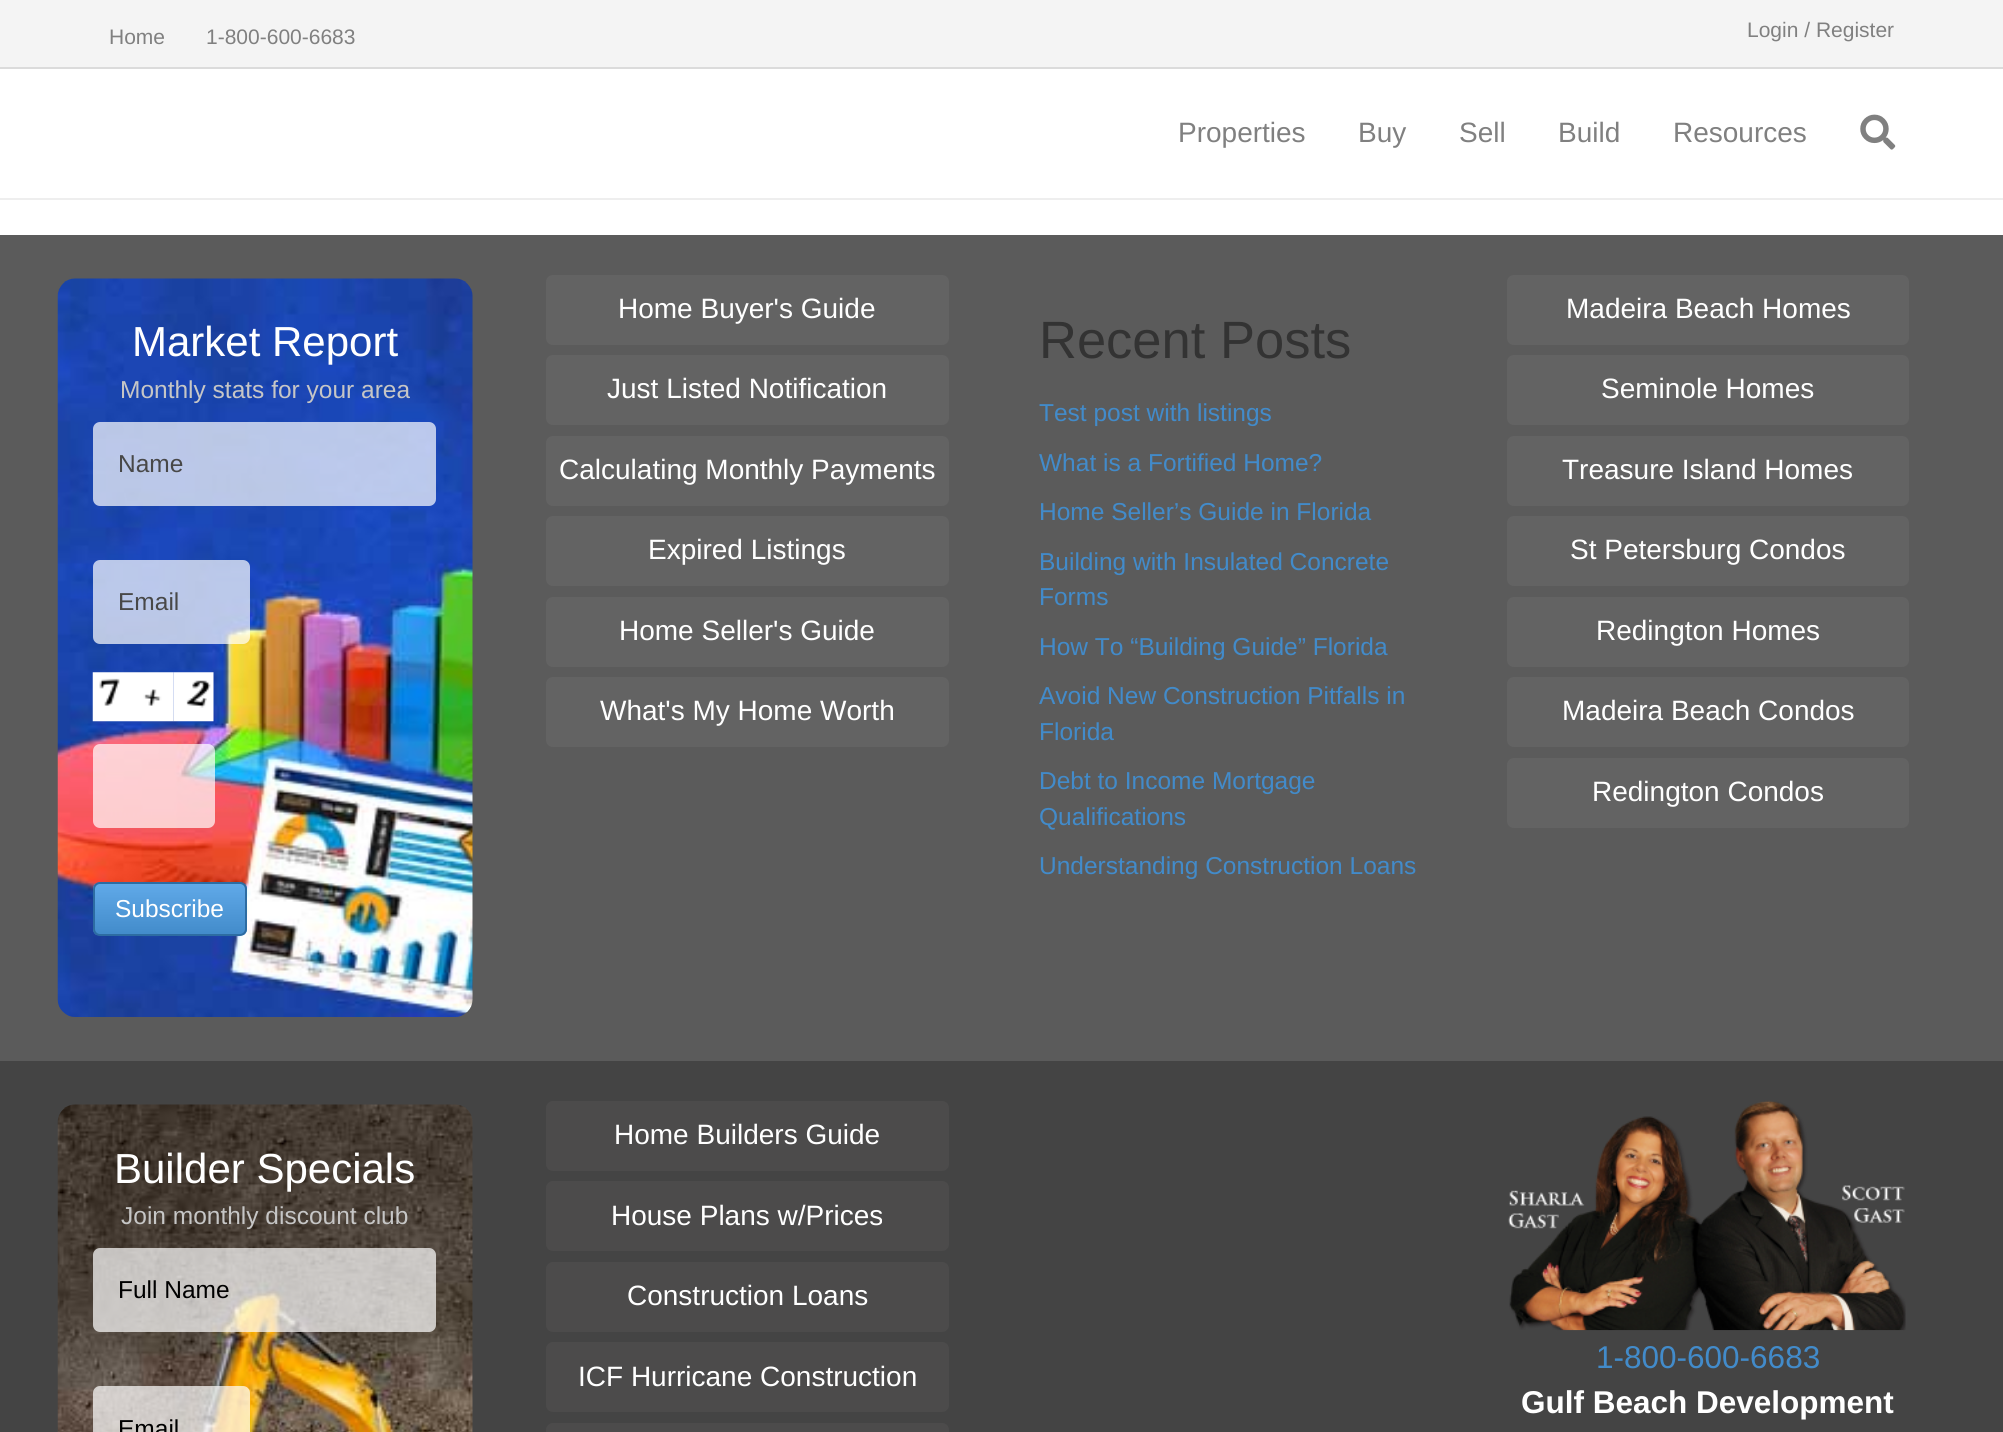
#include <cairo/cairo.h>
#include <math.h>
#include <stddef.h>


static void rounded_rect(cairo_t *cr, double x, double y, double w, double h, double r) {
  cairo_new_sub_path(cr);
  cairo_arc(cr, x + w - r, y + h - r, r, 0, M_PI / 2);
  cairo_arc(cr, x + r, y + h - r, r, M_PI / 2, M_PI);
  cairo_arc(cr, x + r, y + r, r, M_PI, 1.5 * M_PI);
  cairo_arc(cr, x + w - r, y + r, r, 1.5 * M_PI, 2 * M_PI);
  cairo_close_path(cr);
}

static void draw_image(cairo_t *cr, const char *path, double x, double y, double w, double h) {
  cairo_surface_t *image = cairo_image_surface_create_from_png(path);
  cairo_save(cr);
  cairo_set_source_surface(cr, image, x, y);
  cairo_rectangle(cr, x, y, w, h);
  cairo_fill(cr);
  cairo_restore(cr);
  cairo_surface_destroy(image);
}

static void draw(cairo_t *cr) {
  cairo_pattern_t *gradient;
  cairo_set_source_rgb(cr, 1, 1, 1);
  cairo_paint(cr);
  cairo_set_source_rgb(cr, 244 / 255.0, 244 / 255.0, 244 / 255.0);
  cairo_rectangle(cr, 0, 0, 2003, 67);
  cairo_fill(cr);
  cairo_set_source_rgb(cr, 219 / 255.0, 219 / 255.0, 219 / 255.0);
  cairo_rectangle(cr, 0, 67, 2003, 2);
  cairo_fill(cr);
  cairo_set_source_rgb(cr, 238 / 255.0, 238 / 255.0, 238 / 255.0);
  cairo_rectangle(cr, 0, 198, 2003, 2);
  cairo_fill(cr);
  draw_image(cr, "images/1.png", 1860, 114, 36, 36);
  cairo_set_source_rgb(cr, 91 / 255.0, 91 / 255.0, 91 / 255.0);
  cairo_rectangle(cr, 0, 235, 2003, 826);
  cairo_fill(cr);
  draw_image(cr, "images/2.png", 57, 278, 416, 739);
  cairo_set_source_rgba(cr, 1, 1, 1, 0.7);
  rounded_rect(cr, 93, 422, 343, 84, 7);
  cairo_fill(cr);
  rounded_rect(cr, 93, 560, 157, 84, 7);
  cairo_fill(cr);
  draw_image(cr, "images/3.png", 92, 672, 41, 50);
  draw_image(cr, "images/4.png", 133, 672, 41, 50);
  draw_image(cr, "images/5.png", 173, 672, 41, 50);
  rounded_rect(cr, 93, 744, 122, 84, 7);
  cairo_fill(cr);
  cairo_save(cr);
  rounded_rect(cr, 93, 882, 154, 54, 7);
  cairo_clip(cr);
  gradient = cairo_pattern_create_linear(170, 884, 170, 935);
  cairo_pattern_add_color_stop_rgba(gradient, 0, 96 / 255.0, 169 / 255.0, 232 / 255.0, 1);
  cairo_pattern_add_color_stop_rgba(gradient, 1, 66 / 255.0, 139 / 255.0, 202 / 255.0, 1);
  cairo_set_source(cr, gradient);
  cairo_pattern_destroy(gradient);
  cairo_rectangle(cr, 93, 884, 154, 51);
  cairo_fill(cr);
  cairo_restore(cr);
  rounded_rect(cr, 94, 883, 152, 52, 6);
  cairo_set_source_rgb(cr, 45 / 255.0, 108 / 255.0, 162 / 255.0);
  cairo_stroke(cr);
  cairo_set_source_rgb(cr, 99 / 255.0, 99 / 255.0, 99 / 255.0);
  rounded_rect(cr, 546, 275, 403, 70, 7);
  cairo_fill(cr);
  rounded_rect(cr, 546, 355, 403, 70, 7);
  cairo_fill(cr);
  rounded_rect(cr, 546, 436, 403, 70, 7);
  cairo_fill(cr);
  rounded_rect(cr, 546, 516, 403, 70, 7);
  cairo_fill(cr);
  rounded_rect(cr, 546, 597, 403, 70, 7);
  cairo_fill(cr);
  rounded_rect(cr, 546, 677, 403, 70, 7);
  cairo_fill(cr);
  rounded_rect(cr, 1507, 275, 402, 70, 7);
  cairo_fill(cr);
  rounded_rect(cr, 1507, 355, 402, 70, 7);
  cairo_fill(cr);
  rounded_rect(cr, 1507, 436, 402, 70, 7);
  cairo_fill(cr);
  rounded_rect(cr, 1507, 516, 402, 70, 7);
  cairo_fill(cr);
  rounded_rect(cr, 1507, 597, 402, 70, 7);
  cairo_fill(cr);
  rounded_rect(cr, 1507, 677, 402, 70, 7);
  cairo_fill(cr);
  rounded_rect(cr, 1507, 758, 402, 70, 7);
  cairo_fill(cr);
  cairo_set_source_rgb(cr, 68 / 255.0, 68 / 255.0, 68 / 255.0);
  cairo_rectangle(cr, 0, 1061, 2003, 371);
  cairo_fill(cr);
  draw_image(cr, "images/6.png", 57, 1104, 416, 328);
  cairo_set_source_rgba(cr, 1, 1, 1, 0.7);
  rounded_rect(cr, 93, 1248, 343, 84, 7);
  cairo_fill(cr);
  rounded_rect(cr, 93, 1386, 157, 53, 7);
  cairo_fill(cr);
  cairo_set_source_rgb(cr, 76 / 255.0, 75 / 255.0, 75 / 255.0);
  rounded_rect(cr, 546, 1101, 403, 70, 7);
  cairo_fill(cr);
  rounded_rect(cr, 546, 1181, 403, 70, 7);
  cairo_fill(cr);
  rounded_rect(cr, 546, 1262, 403, 70, 7);
  cairo_fill(cr);
  rounded_rect(cr, 546, 1342, 403, 70, 7);
  cairo_fill(cr);
  rounded_rect(cr, 546, 1423, 403, 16, 7);
  cairo_fill(cr);
  draw_image(cr, "images/7.png", 1508, 1100, 398, 231);
  cairo_select_font_face(cr, "Liberation Sans", CAIRO_FONT_SLANT_NORMAL, CAIRO_FONT_WEIGHT_NORMAL);
  cairo_set_font_size(cr, 21);
  cairo_set_source_rgb(cr, 128 / 255.0, 128 / 255.0, 128 / 255.0);
  cairo_move_to(cr, 109, 44);
  cairo_show_text(cr, "Home");
  cairo_move_to(cr, 206, 44);
  cairo_show_text(cr, "1-800-600-6683");
  cairo_move_to(cr, 1747, 37);
  cairo_show_text(cr, "Login / Register");
  cairo_set_font_size(cr, 28);
  cairo_move_to(cr, 1178, 142);
  cairo_show_text(cr, "Properties");
  cairo_move_to(cr, 1358, 142);
  cairo_show_text(cr, "Buy");
  cairo_move_to(cr, 1459, 142);
  cairo_show_text(cr, "Sell");
  cairo_move_to(cr, 1558, 142);
  cairo_show_text(cr, "Build");
  cairo_move_to(cr, 1673, 142);
  cairo_show_text(cr, "Resources");
  cairo_set_font_size(cr, 42);
  cairo_set_source_rgb(cr, 1, 1, 1);
  cairo_move_to(cr, 132, 356);
  cairo_show_text(cr, "Market Report");
  cairo_set_font_size(cr, 24.5);
  cairo_set_source_rgb(cr, 198 / 255.0, 198 / 255.0, 198 / 255.0);
  cairo_move_to(cr, 120, 398);
  cairo_show_text(cr, "Monthly stats for your area");
  cairo_set_source_rgb(cr, 72 / 255.0, 72 / 255.0, 72 / 255.0);
  cairo_move_to(cr, 118, 472);
  cairo_show_text(cr, "Name");
  cairo_move_to(cr, 118, 610);
  cairo_show_text(cr, "Email");
  cairo_set_source_rgb(cr, 1, 1, 1);
  cairo_move_to(cr, 115, 917);
  cairo_show_text(cr, "Subscribe");
  cairo_set_font_size(cr, 28);
  cairo_move_to(cr, 618, 318);
  cairo_show_text(cr, "Home Buyer's Guide");
  cairo_move_to(cr, 607, 398);
  cairo_show_text(cr, "Just Listed Notification");
  cairo_move_to(cr, 559, 479);
  cairo_show_text(cr, "Calculating Monthly Payments");
  cairo_move_to(cr, 648, 559);
  cairo_show_text(cr, "Expired Listings");
  cairo_move_to(cr, 619, 640);
  cairo_show_text(cr, "Home Seller's Guide");
  cairo_move_to(cr, 600, 720);
  cairo_show_text(cr, "What's My Home Worth");
  cairo_set_font_size(cr, 52.5);
  cairo_set_source_rgb(cr, 51 / 255.0, 51 / 255.0, 51 / 255.0);
  cairo_move_to(cr, 1039, 358);
  cairo_show_text(cr, "Recent Posts");
  cairo_set_font_size(cr, 24.5);
  cairo_set_source_rgb(cr, 66 / 255.0, 139 / 255.0, 202 / 255.0);
  cairo_move_to(cr, 1039, 421);
  cairo_show_text(cr, "Test post with listings");
  cairo_move_to(cr, 1039, 471);
  cairo_show_text(cr, "What is a Fortified Home?");
  cairo_move_to(cr, 1039, 520);
  cairo_show_text(cr, "Home Seller’s Guide in Florida");
  cairo_move_to(cr, 1039, 570);
  cairo_show_text(cr, "Building with Insulated Concrete");
  cairo_move_to(cr, 1039, 605);
  cairo_show_text(cr, "Forms");
  cairo_move_to(cr, 1039, 655);
  cairo_show_text(cr, "How To “Building Guide” Florida");
  cairo_move_to(cr, 1039, 704);
  cairo_show_text(cr, "Avoid New Construction Pitfalls in");
  cairo_move_to(cr, 1039, 740);
  cairo_show_text(cr, "Florida");
  cairo_move_to(cr, 1039, 789);
  cairo_show_text(cr, "Debt to Income Mortgage");
  cairo_move_to(cr, 1039, 825);
  cairo_show_text(cr, "Qualifications");
  cairo_move_to(cr, 1039, 874);
  cairo_show_text(cr, "Understanding Construction Loans");
  cairo_set_font_size(cr, 28);
  cairo_set_source_rgb(cr, 1, 1, 1);
  cairo_move_to(cr, 1566, 318);
  cairo_show_text(cr, "Madeira Beach Homes");
  cairo_move_to(cr, 1601, 398);
  cairo_show_text(cr, "Seminole Homes");
  cairo_move_to(cr, 1562, 479);
  cairo_show_text(cr, "Treasure Island Homes");
  cairo_move_to(cr, 1570, 559);
  cairo_show_text(cr, "St Petersburg Condos");
  cairo_move_to(cr, 1596, 640);
  cairo_show_text(cr, "Redington Homes");
  cairo_move_to(cr, 1562, 720);
  cairo_show_text(cr, "Madeira Beach Condos");
  cairo_move_to(cr, 1592, 801);
  cairo_show_text(cr, "Redington Condos");
  cairo_set_font_size(cr, 42);
  cairo_move_to(cr, 114, 1183);
  cairo_show_text(cr, "Builder Specials");
  cairo_set_font_size(cr, 24.5);
  cairo_set_source_rgb(cr, 198 / 255.0, 198 / 255.0, 198 / 255.0);
  cairo_move_to(cr, 121, 1224);
  cairo_show_text(cr, "Join monthly discount club");
  cairo_set_source_rgb(cr, 0, 0, 0);
  cairo_move_to(cr, 118, 1298);
  cairo_show_text(cr, "Full Name");
  cairo_move_to(cr, 118, 1437);
  cairo_show_text(cr, "Email");
  cairo_set_font_size(cr, 28);
  cairo_set_source_rgb(cr, 1, 1, 1);
  cairo_move_to(cr, 614, 1144);
  cairo_show_text(cr, "Home Builders Guide");
  cairo_move_to(cr, 611, 1225);
  cairo_show_text(cr, "House Plans w/Prices");
  cairo_move_to(cr, 627, 1305);
  cairo_show_text(cr, "Construction Loans");
  cairo_move_to(cr, 578, 1386);
  cairo_show_text(cr, "ICF Hurricane Construction");
  cairo_set_font_size(cr, 31.5);
  cairo_set_source_rgb(cr, 66 / 255.0, 139 / 255.0, 202 / 255.0);
  cairo_move_to(cr, 1596, 1368);
  cairo_show_text(cr, "1-800-600-6683");
  cairo_select_font_face(cr, "Liberation Sans", CAIRO_FONT_SLANT_NORMAL, CAIRO_FONT_WEIGHT_BOLD);
  cairo_set_source_rgb(cr, 1, 1, 1);
  cairo_move_to(cr, 1521, 1413);
  cairo_show_text(cr, "Gulf Beach Development");
}

int main(void) {
  cairo_surface_t *surface = cairo_image_surface_create(CAIRO_FORMAT_RGB24, 2003, 1432);
  cairo_t *cr = cairo_create(surface);
  cairo_font_options_t *options = cairo_font_options_create();
  cairo_font_options_set_hint_metrics(options, CAIRO_HINT_METRICS_OFF);
  cairo_font_options_set_hint_style(options, CAIRO_HINT_STYLE_NONE);
  cairo_set_font_options(cr, options);
  cairo_set_miter_limit(cr, 4);
  draw(cr);
  cairo_surface_write_to_png(surface, "out.png");
  cairo_font_options_destroy(options);
  cairo_destroy(cr);
  cairo_surface_destroy(surface);
  return 0;
}
